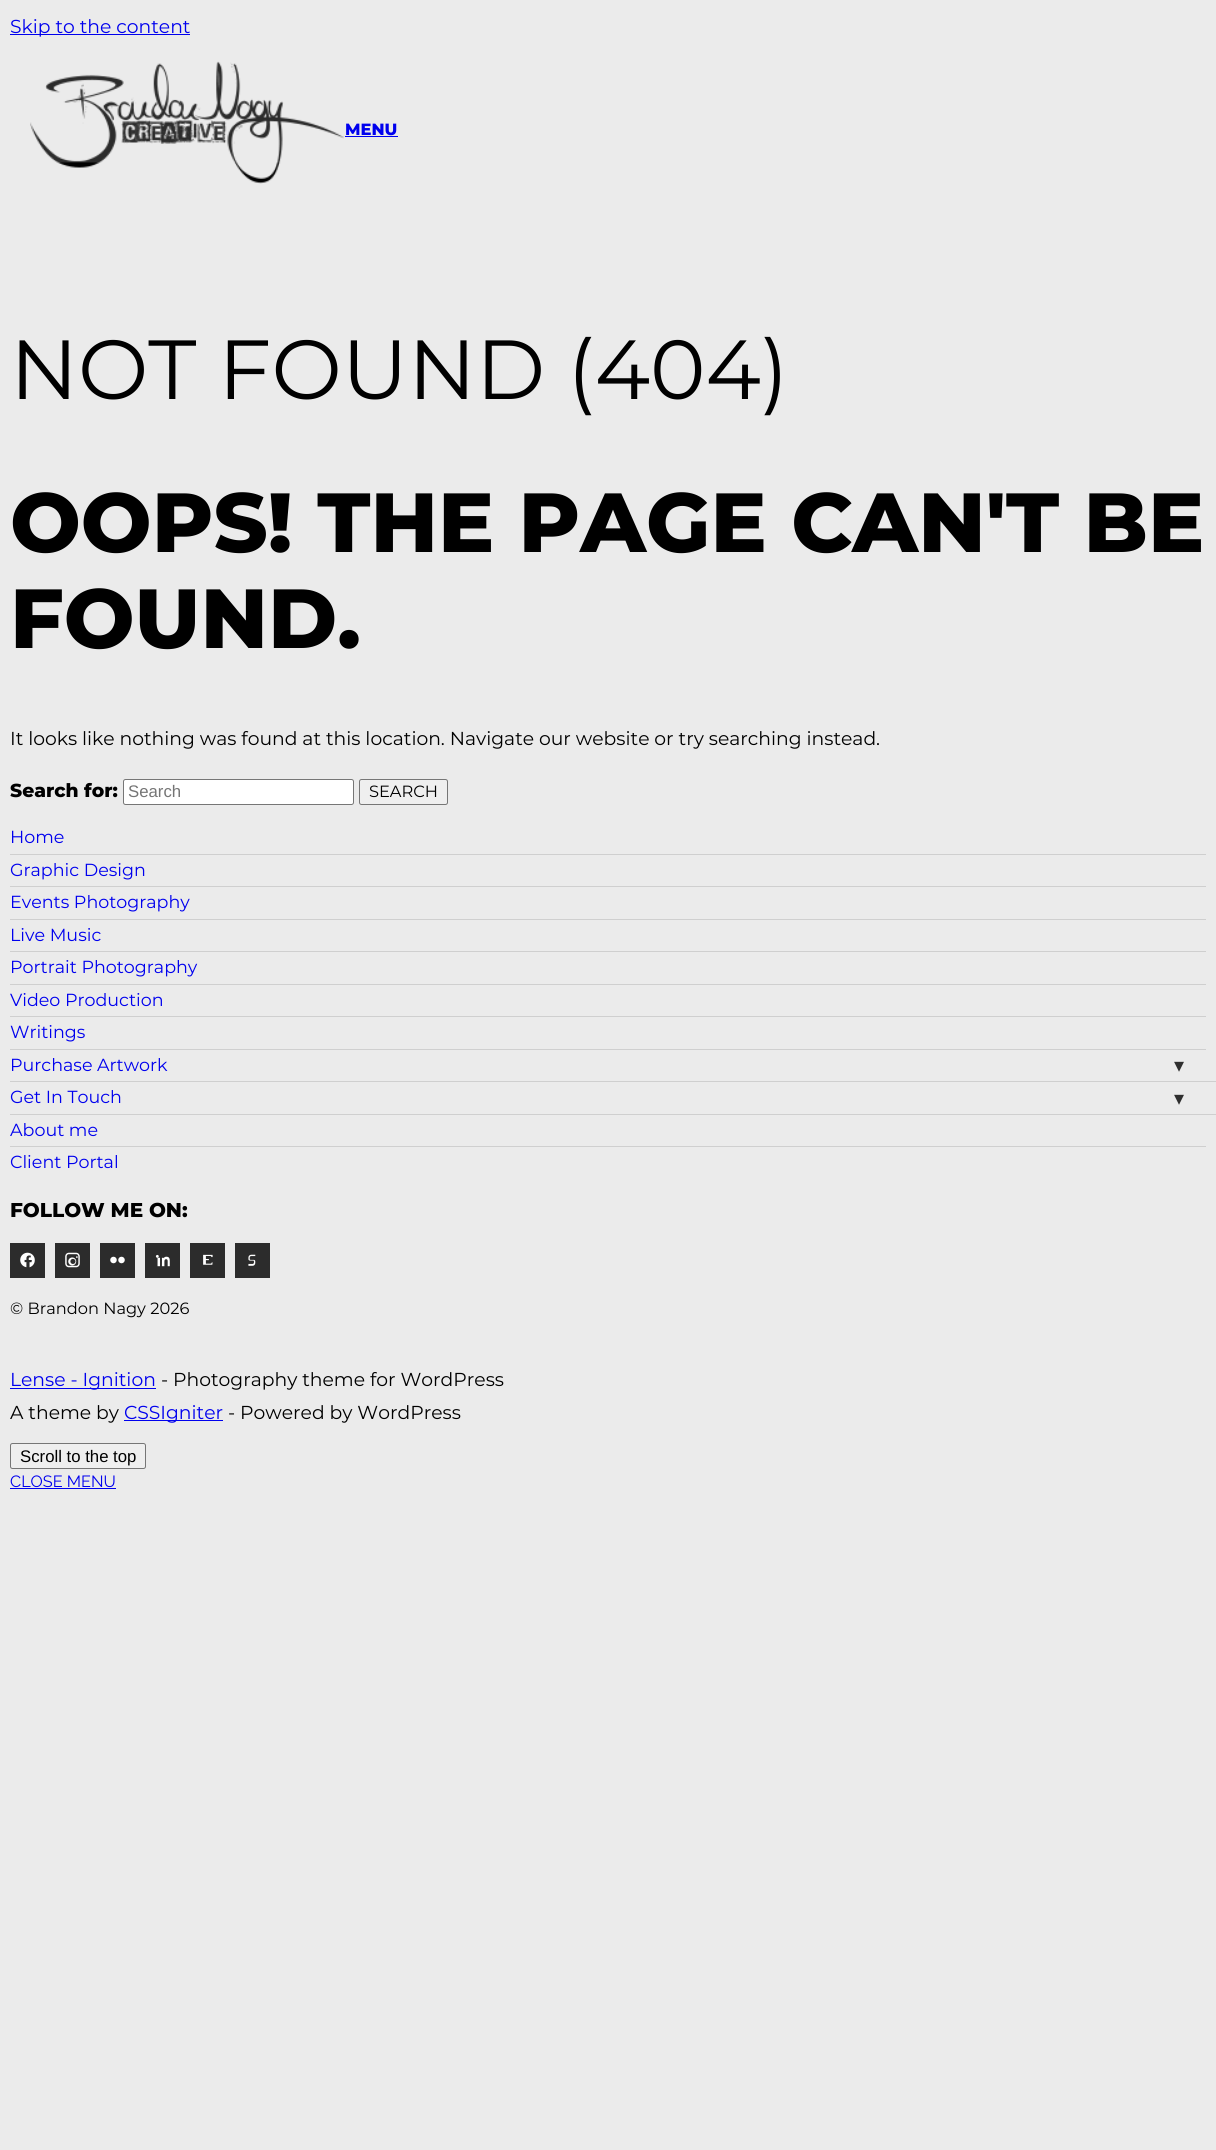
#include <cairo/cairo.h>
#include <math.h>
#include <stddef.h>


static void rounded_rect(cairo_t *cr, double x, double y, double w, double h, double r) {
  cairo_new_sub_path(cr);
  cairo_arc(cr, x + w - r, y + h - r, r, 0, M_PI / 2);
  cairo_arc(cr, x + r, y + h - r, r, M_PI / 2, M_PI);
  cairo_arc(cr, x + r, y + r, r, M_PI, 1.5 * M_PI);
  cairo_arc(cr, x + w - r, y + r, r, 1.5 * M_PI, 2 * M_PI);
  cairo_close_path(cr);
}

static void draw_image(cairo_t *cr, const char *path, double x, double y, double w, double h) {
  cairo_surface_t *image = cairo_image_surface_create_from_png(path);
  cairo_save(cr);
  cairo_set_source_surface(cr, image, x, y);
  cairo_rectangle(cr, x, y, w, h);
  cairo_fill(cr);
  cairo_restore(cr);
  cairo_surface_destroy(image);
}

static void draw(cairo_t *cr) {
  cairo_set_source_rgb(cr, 235 / 255.0, 235 / 255.0, 235 / 255.0);
  cairo_paint(cr);
  cairo_set_source_rgb(cr, 0, 0, 238 / 255.0);
  cairo_rectangle(cr, 10, 34, 180, 1);
  cairo_fill(cr);
  draw_image(cr, "images/1.png", 30, 61, 314, 123);
  cairo_rectangle(cr, 345, 136, 53, 1);
  cairo_fill(cr);
  cairo_set_source_rgb(cr, 1, 1, 1);
  rounded_rect(cr, 123.5, 779.5, 230, 25, 2);
  cairo_fill_preserve(cr);
  cairo_set_source_rgb(cr, 118 / 255.0, 118 / 255.0, 118 / 255.0);
  cairo_set_line_width(cr, 1);
  cairo_stroke(cr);
  cairo_set_source_rgb(cr, 239 / 255.0, 239 / 255.0, 239 / 255.0);
  rounded_rect(cr, 359.5, 779.5, 88, 25, 2);
  cairo_fill_preserve(cr);
  cairo_set_source_rgb(cr, 118 / 255.0, 118 / 255.0, 118 / 255.0);
  cairo_stroke(cr);
  cairo_set_source_rgb(cr, 207 / 255.0, 207 / 255.0, 207 / 255.0);
  cairo_rectangle(cr, 10, 854, 1196, 1);
  cairo_fill(cr);
  cairo_rectangle(cr, 10, 886, 1196, 1);
  cairo_fill(cr);
  cairo_rectangle(cr, 10, 919, 1196, 1);
  cairo_fill(cr);
  cairo_rectangle(cr, 10, 951, 1196, 1);
  cairo_fill(cr);
  cairo_rectangle(cr, 10, 984, 1196, 1);
  cairo_fill(cr);
  cairo_rectangle(cr, 10, 1016, 1196, 1);
  cairo_fill(cr);
  cairo_rectangle(cr, 10, 1049, 1196, 1);
  cairo_fill(cr);
  cairo_rectangle(cr, 10, 1081, 1206, 1);
  cairo_fill(cr);
  cairo_rectangle(cr, 10, 1114, 1206, 1);
  cairo_fill(cr);
  cairo_rectangle(cr, 10, 1146, 1196, 1);
  cairo_fill(cr);
  cairo_set_source_rgb(cr, 44 / 255.0, 44 / 255.0, 44 / 255.0);
  cairo_rectangle(cr, 10, 1243, 35, 35);
  cairo_fill(cr);
  draw_image(cr, "images/2.png", 20, 1252, 15, 16);
  cairo_rectangle(cr, 55, 1243, 35, 35);
  cairo_fill(cr);
  draw_image(cr, "images/3.png", 65, 1252, 15, 16);
  cairo_rectangle(cr, 100, 1243, 35, 35);
  cairo_fill(cr);
  draw_image(cr, "images/4.png", 110, 1256, 15, 8);
  cairo_rectangle(cr, 145, 1243, 35, 35);
  cairo_fill(cr);
  draw_image(cr, "images/5.png", 155, 1254, 15, 13);
  cairo_rectangle(cr, 190, 1243, 35, 35);
  cairo_fill(cr);
  draw_image(cr, "images/6.png", 203, 1254, 10, 11);
  cairo_rectangle(cr, 235, 1243, 35, 35);
  cairo_fill(cr);
  draw_image(cr, "images/7.png", 248, 1254, 8, 12);
  cairo_set_source_rgb(cr, 0, 0, 238 / 255.0);
  cairo_rectangle(cr, 10, 1388, 146, 1);
  cairo_fill(cr);
  cairo_rectangle(cr, 124, 1420, 99, 1);
  cairo_fill(cr);
  cairo_set_source_rgb(cr, 239 / 255.0, 239 / 255.0, 239 / 255.0);
  rounded_rect(cr, 10.5, 1443.5, 135, 25, 2);
  cairo_fill_preserve(cr);
  cairo_set_source_rgb(cr, 118 / 255.0, 118 / 255.0, 118 / 255.0);
  cairo_stroke(cr);
  cairo_set_source_rgb(cr, 0, 0, 238 / 255.0);
  cairo_rectangle(cr, 10, 1488, 106, 1);
  cairo_fill(cr);
  cairo_select_font_face(cr, "Montserrat", CAIRO_FONT_SLANT_NORMAL, CAIRO_FONT_WEIGHT_NORMAL);
  cairo_set_font_size(cr, 18.75);
  cairo_move_to(cr, 10, 33);
  cairo_show_text(cr, "Skip to the content");
  cairo_select_font_face(cr, "Montserrat ExtraBold", CAIRO_FONT_SLANT_NORMAL, CAIRO_FONT_WEIGHT_NORMAL);
  cairo_set_font_size(cr, 16.25);
  cairo_move_to(cr, 345, 135);
  cairo_show_text(cr, "MENU");
  cairo_select_font_face(cr, "Montserrat", CAIRO_FONT_SLANT_NORMAL, CAIRO_FONT_WEIGHT_NORMAL);
  cairo_set_font_size(cr, 83.75);
  cairo_set_source_rgb(cr, 0, 0, 0);
  cairo_move_to(cr, 10, 399);
  cairo_show_text(cr, "NOT FOUND (404)");
  cairo_select_font_face(cr, "Montserrat ExtraBold", CAIRO_FONT_SLANT_NORMAL, CAIRO_FONT_WEIGHT_NORMAL);
  cairo_move_to(cr, 10, 552);
  cairo_show_text(cr, "OOPS! THE PAGE CAN'T BE");
  cairo_move_to(cr, 10, 648);
  cairo_show_text(cr, "FOUND.");
  cairo_select_font_face(cr, "Montserrat", CAIRO_FONT_SLANT_NORMAL, CAIRO_FONT_WEIGHT_NORMAL);
  cairo_set_font_size(cr, 18.75);
  cairo_move_to(cr, 10, 745);
  cairo_show_text(cr, "It looks like nothing was found at this location. Navigate our website or try searching instead.");
  cairo_select_font_face(cr, "Montserrat ExtraBold", CAIRO_FONT_SLANT_NORMAL, CAIRO_FONT_WEIGHT_NORMAL);
  cairo_move_to(cr, 10, 797);
  cairo_show_text(cr, "Search for:");
  cairo_select_font_face(cr, "Liberation Sans", CAIRO_FONT_SLANT_NORMAL, CAIRO_FONT_WEIGHT_NORMAL);
  cairo_set_font_size(cr, 16.75);
  cairo_set_source_rgb(cr, 117 / 255.0, 117 / 255.0, 117 / 255.0);
  cairo_move_to(cr, 128, 797);
  cairo_show_text(cr, "Search");
  cairo_select_font_face(cr, "Montserrat", CAIRO_FONT_SLANT_NORMAL, CAIRO_FONT_WEIGHT_NORMAL);
  cairo_set_font_size(cr, 16.25);
  cairo_set_source_rgb(cr, 0, 0, 0);
  cairo_move_to(cr, 369, 797);
  cairo_show_text(cr, "SEARCH");
  cairo_set_font_size(cr, 17.5);
  cairo_set_source_rgb(cr, 0, 0, 238 / 255.0);
  cairo_move_to(cr, 10, 843);
  cairo_show_text(cr, "Home");
  cairo_move_to(cr, 10, 876);
  cairo_show_text(cr, "Graphic Design");
  cairo_move_to(cr, 10, 908);
  cairo_show_text(cr, "Events Photography");
  cairo_move_to(cr, 10, 941);
  cairo_show_text(cr, "Live Music");
  cairo_move_to(cr, 10, 973);
  cairo_show_text(cr, "Portrait Photography");
  cairo_move_to(cr, 10, 1006);
  cairo_show_text(cr, "Video Production");
  cairo_move_to(cr, 10, 1038);
  cairo_show_text(cr, "Writings");
  cairo_move_to(cr, 10, 1071);
  cairo_show_text(cr, "Purchase Artwork");
  cairo_select_font_face(cr, "DejaVu Sans", CAIRO_FONT_SLANT_NORMAL, CAIRO_FONT_WEIGHT_NORMAL);
  cairo_set_font_size(cr, 20);
  cairo_set_source_rgb(cr, 47 / 255.0, 47 / 255.0, 47 / 255.0);
  cairo_move_to(cr, 1174, 1072);
  cairo_show_text(cr, "▾");
  cairo_select_font_face(cr, "Montserrat", CAIRO_FONT_SLANT_NORMAL, CAIRO_FONT_WEIGHT_NORMAL);
  cairo_set_font_size(cr, 17.5);
  cairo_set_source_rgb(cr, 0, 0, 238 / 255.0);
  cairo_move_to(cr, 10, 1103);
  cairo_show_text(cr, "Get In Touch");
  cairo_select_font_face(cr, "DejaVu Sans", CAIRO_FONT_SLANT_NORMAL, CAIRO_FONT_WEIGHT_NORMAL);
  cairo_set_font_size(cr, 20);
  cairo_set_source_rgb(cr, 47 / 255.0, 47 / 255.0, 47 / 255.0);
  cairo_move_to(cr, 1174, 1105);
  cairo_show_text(cr, "▾");
  cairo_select_font_face(cr, "Montserrat", CAIRO_FONT_SLANT_NORMAL, CAIRO_FONT_WEIGHT_NORMAL);
  cairo_set_font_size(cr, 17.5);
  cairo_set_source_rgb(cr, 0, 0, 238 / 255.0);
  cairo_move_to(cr, 10, 1136);
  cairo_show_text(cr, "About me");
  cairo_move_to(cr, 10, 1168);
  cairo_show_text(cr, "Client Portal");
  cairo_select_font_face(cr, "Montserrat ExtraBold", CAIRO_FONT_SLANT_NORMAL, CAIRO_FONT_WEIGHT_NORMAL);
  cairo_set_font_size(cr, 20);
  cairo_set_source_rgb(cr, 0, 0, 0);
  cairo_move_to(cr, 10, 1217);
  cairo_show_text(cr, "FOLLOW ME ON:");
  cairo_select_font_face(cr, "Montserrat", CAIRO_FONT_SLANT_NORMAL, CAIRO_FONT_WEIGHT_NORMAL);
  cairo_set_font_size(cr, 16.25);
  cairo_move_to(cr, 10, 1314);
  cairo_show_text(cr, "© Brandon Nagy 2026");
  cairo_set_font_size(cr, 18.75);
  cairo_set_source_rgb(cr, 0, 0, 238 / 255.0);
  cairo_move_to(cr, 10, 1386);
  cairo_show_text(cr, "Lense - Ignition");
  cairo_set_source_rgb(cr, 0, 0, 0);
  cairo_move_to(cr, 161, 1386);
  cairo_show_text(cr, "- Photography theme for WordPress");
  cairo_move_to(cr, 10, 1419);
  cairo_show_text(cr, "A theme by");
  cairo_set_source_rgb(cr, 0, 0, 238 / 255.0);
  cairo_move_to(cr, 124, 1419);
  cairo_show_text(cr, "CSSIgniter");
  cairo_set_source_rgb(cr, 0, 0, 0);
  cairo_move_to(cr, 228, 1419);
  cairo_show_text(cr, "- Powered by WordPress");
  cairo_select_font_face(cr, "Liberation Sans", CAIRO_FONT_SLANT_NORMAL, CAIRO_FONT_WEIGHT_NORMAL);
  cairo_set_font_size(cr, 16.75);
  cairo_move_to(cr, 20, 1462);
  cairo_show_text(cr, "Scroll to the top");
  cairo_select_font_face(cr, "Raleway", CAIRO_FONT_SLANT_NORMAL, CAIRO_FONT_WEIGHT_NORMAL);
  cairo_set_font_size(cr, 16.25);
  cairo_set_source_rgb(cr, 0, 0, 238 / 255.0);
  cairo_move_to(cr, 10, 1487);
  cairo_show_text(cr, "CLOSE MENU");
}

int main(void) {
  cairo_surface_t *surface = cairo_image_surface_create(CAIRO_FORMAT_RGB24, 1216, 2150);
  cairo_t *cr = cairo_create(surface);
  cairo_font_options_t *options = cairo_font_options_create();
  cairo_font_options_set_hint_metrics(options, CAIRO_HINT_METRICS_OFF);
  cairo_font_options_set_hint_style(options, CAIRO_HINT_STYLE_NONE);
  cairo_set_font_options(cr, options);
  cairo_set_miter_limit(cr, 4);
  draw(cr);
  cairo_surface_write_to_png(surface, "out.png");
  cairo_font_options_destroy(options);
  cairo_destroy(cr);
  cairo_surface_destroy(surface);
  return 0;
}
